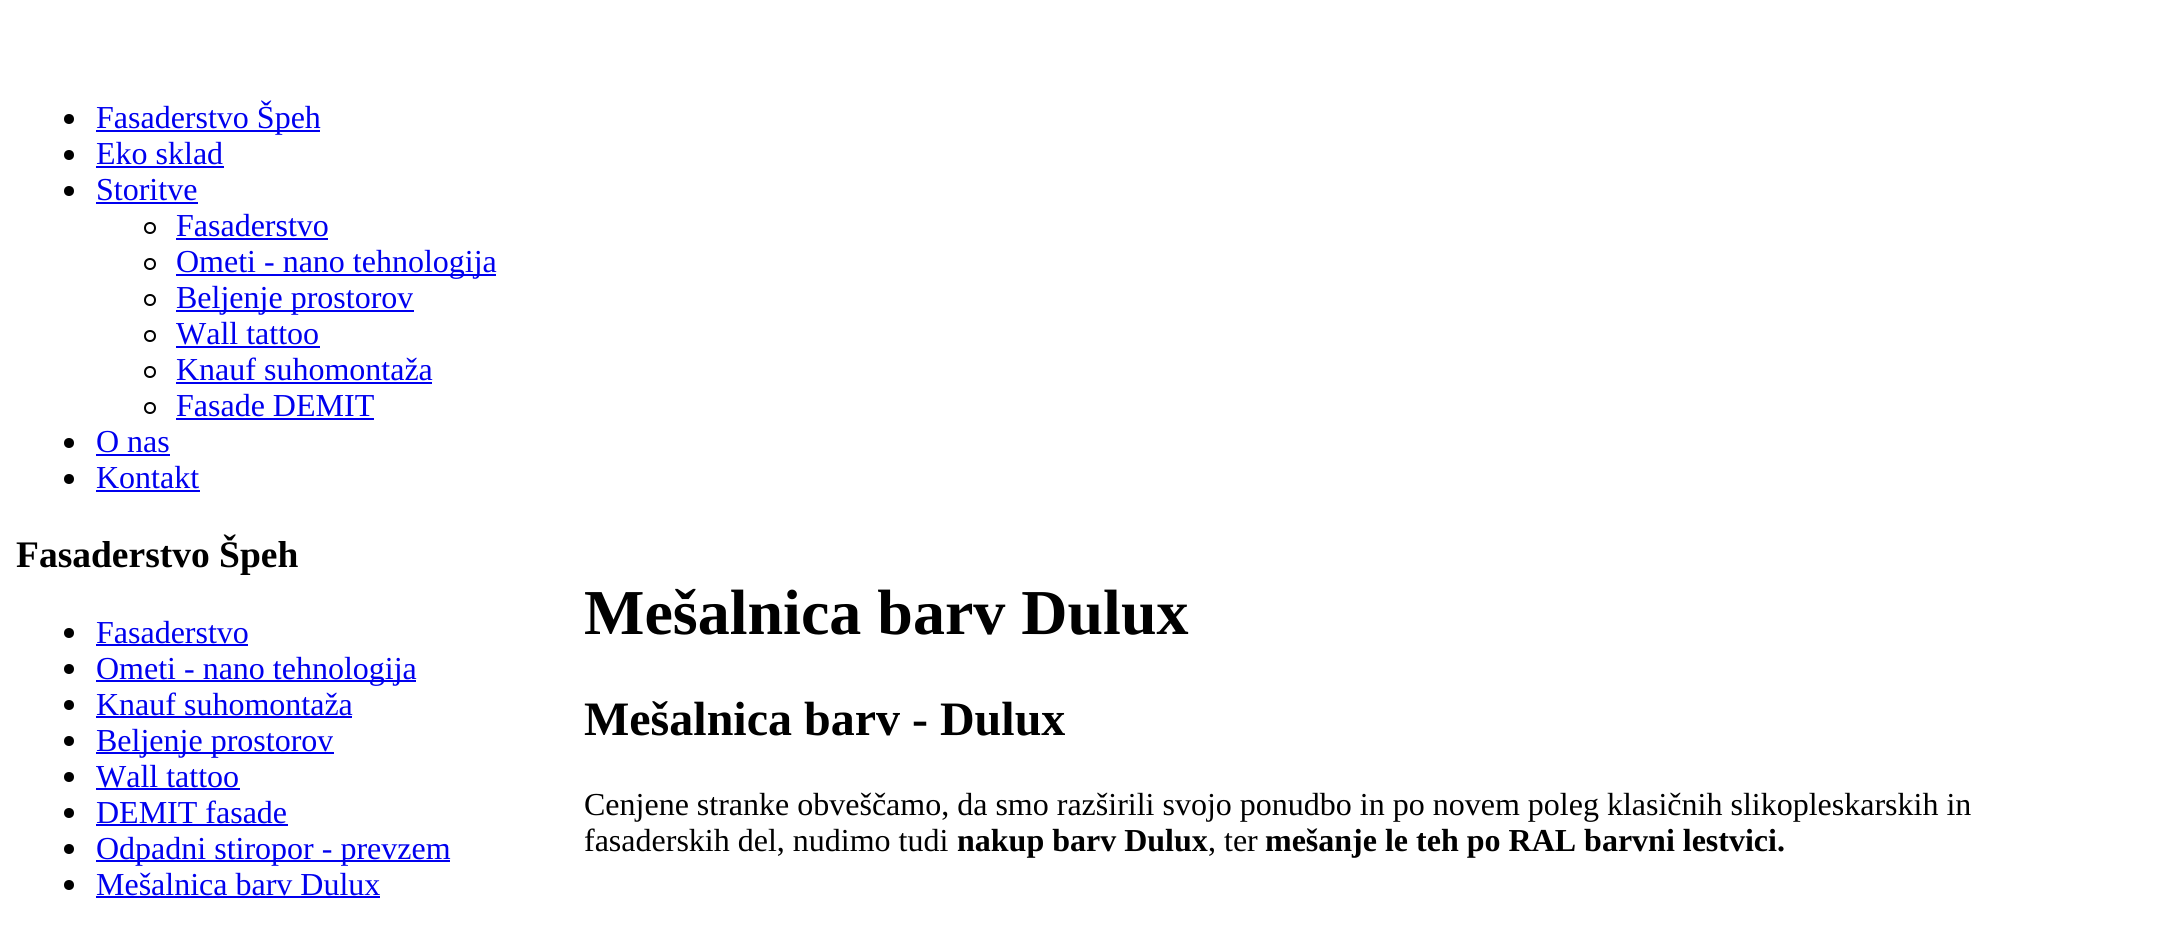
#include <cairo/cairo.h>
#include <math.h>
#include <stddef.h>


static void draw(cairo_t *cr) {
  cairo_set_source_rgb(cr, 1, 1, 1);
  cairo_paint(cr);
  cairo_set_source_rgb(cr, 0, 0, 0);
  cairo_arc(cr, 69, 119, 5, 0, 2 * M_PI);
  cairo_fill(cr);
  cairo_set_source_rgb(cr, 0, 0, 238 / 255.0);
  cairo_rectangle(cr, 96, 130, 224, 2);
  cairo_fill(cr);
  cairo_set_source_rgb(cr, 0, 0, 0);
  cairo_arc(cr, 69, 155, 5, 0, 2 * M_PI);
  cairo_fill(cr);
  cairo_set_source_rgb(cr, 0, 0, 238 / 255.0);
  cairo_rectangle(cr, 96, 166, 128, 2);
  cairo_fill(cr);
  cairo_set_source_rgb(cr, 0, 0, 0);
  cairo_arc(cr, 69, 191, 5, 0, 2 * M_PI);
  cairo_fill(cr);
  cairo_set_source_rgb(cr, 0, 0, 238 / 255.0);
  cairo_rectangle(cr, 96, 202, 102, 2);
  cairo_fill(cr);
  cairo_arc(cr, 150, 228, 5, 0, 2 * M_PI);
  cairo_set_source_rgb(cr, 0, 0, 0);
  cairo_stroke(cr);
  cairo_set_source_rgb(cr, 0, 0, 238 / 255.0);
  cairo_rectangle(cr, 176, 238, 152, 2);
  cairo_fill(cr);
  cairo_arc(cr, 150, 264, 5, 0, 2 * M_PI);
  cairo_set_source_rgb(cr, 0, 0, 0);
  cairo_stroke(cr);
  cairo_set_source_rgb(cr, 0, 0, 238 / 255.0);
  cairo_rectangle(cr, 176, 274, 320, 2);
  cairo_fill(cr);
  cairo_arc(cr, 150, 300, 5, 0, 2 * M_PI);
  cairo_set_source_rgb(cr, 0, 0, 0);
  cairo_stroke(cr);
  cairo_set_source_rgb(cr, 0, 0, 238 / 255.0);
  cairo_rectangle(cr, 176, 310, 238, 2);
  cairo_fill(cr);
  cairo_arc(cr, 150, 336, 5, 0, 2 * M_PI);
  cairo_set_source_rgb(cr, 0, 0, 0);
  cairo_stroke(cr);
  cairo_set_source_rgb(cr, 0, 0, 238 / 255.0);
  cairo_rectangle(cr, 176, 346, 144, 2);
  cairo_fill(cr);
  cairo_arc(cr, 150, 372, 5, 0, 2 * M_PI);
  cairo_set_source_rgb(cr, 0, 0, 0);
  cairo_stroke(cr);
  cairo_set_source_rgb(cr, 0, 0, 238 / 255.0);
  cairo_rectangle(cr, 176, 382, 256, 2);
  cairo_fill(cr);
  cairo_arc(cr, 150, 408, 5, 0, 2 * M_PI);
  cairo_set_source_rgb(cr, 0, 0, 0);
  cairo_stroke(cr);
  cairo_set_source_rgb(cr, 0, 0, 238 / 255.0);
  cairo_rectangle(cr, 176, 418, 198, 2);
  cairo_fill(cr);
  cairo_set_source_rgb(cr, 0, 0, 0);
  cairo_arc(cr, 69, 443, 5, 0, 2 * M_PI);
  cairo_fill(cr);
  cairo_set_source_rgb(cr, 0, 0, 238 / 255.0);
  cairo_rectangle(cr, 96, 454, 74, 2);
  cairo_fill(cr);
  cairo_set_source_rgb(cr, 0, 0, 0);
  cairo_arc(cr, 69, 479, 5, 0, 2 * M_PI);
  cairo_fill(cr);
  cairo_set_source_rgb(cr, 0, 0, 238 / 255.0);
  cairo_rectangle(cr, 96, 490, 104, 2);
  cairo_fill(cr);
  cairo_set_source_rgb(cr, 0, 0, 0);
  cairo_arc(cr, 69, 633, 5, 0, 2 * M_PI);
  cairo_fill(cr);
  cairo_set_source_rgb(cr, 0, 0, 238 / 255.0);
  cairo_rectangle(cr, 96, 644, 152, 2);
  cairo_fill(cr);
  cairo_set_source_rgb(cr, 0, 0, 0);
  cairo_arc(cr, 69, 669, 5, 0, 2 * M_PI);
  cairo_fill(cr);
  cairo_set_source_rgb(cr, 0, 0, 238 / 255.0);
  cairo_rectangle(cr, 96, 680, 320, 2);
  cairo_fill(cr);
  cairo_set_source_rgb(cr, 0, 0, 0);
  cairo_arc(cr, 69, 705, 5, 0, 2 * M_PI);
  cairo_fill(cr);
  cairo_set_source_rgb(cr, 0, 0, 238 / 255.0);
  cairo_rectangle(cr, 96, 716, 256, 2);
  cairo_fill(cr);
  cairo_set_source_rgb(cr, 0, 0, 0);
  cairo_arc(cr, 69, 741, 5, 0, 2 * M_PI);
  cairo_fill(cr);
  cairo_set_source_rgb(cr, 0, 0, 238 / 255.0);
  cairo_rectangle(cr, 96, 752, 238, 2);
  cairo_fill(cr);
  cairo_set_source_rgb(cr, 0, 0, 0);
  cairo_arc(cr, 69, 777, 5, 0, 2 * M_PI);
  cairo_fill(cr);
  cairo_set_source_rgb(cr, 0, 0, 238 / 255.0);
  cairo_rectangle(cr, 96, 788, 144, 2);
  cairo_fill(cr);
  cairo_set_source_rgb(cr, 0, 0, 0);
  cairo_arc(cr, 69, 813, 5, 0, 2 * M_PI);
  cairo_fill(cr);
  cairo_set_source_rgb(cr, 0, 0, 238 / 255.0);
  cairo_rectangle(cr, 96, 824, 192, 2);
  cairo_fill(cr);
  cairo_set_source_rgb(cr, 0, 0, 0);
  cairo_arc(cr, 69, 849, 5, 0, 2 * M_PI);
  cairo_fill(cr);
  cairo_set_source_rgb(cr, 0, 0, 238 / 255.0);
  cairo_rectangle(cr, 96, 860, 354, 2);
  cairo_fill(cr);
  cairo_set_source_rgb(cr, 0, 0, 0);
  cairo_arc(cr, 69, 885, 5, 0, 2 * M_PI);
  cairo_fill(cr);
  cairo_set_source_rgb(cr, 0, 0, 238 / 255.0);
  cairo_rectangle(cr, 96, 896, 284, 2);
  cairo_fill(cr);
  cairo_select_font_face(cr, "Liberation Serif", CAIRO_FONT_SLANT_NORMAL, CAIRO_FONT_WEIGHT_NORMAL);
  cairo_set_font_size(cr, 32);
  cairo_move_to(cr, 96, 128);
  cairo_show_text(cr, "Fasaderstvo Špeh");
  cairo_move_to(cr, 96, 164);
  cairo_show_text(cr, "Eko sklad");
  cairo_move_to(cr, 96, 200);
  cairo_show_text(cr, "Storitve");
  cairo_move_to(cr, 176, 236);
  cairo_show_text(cr, "Fasaderstvo");
  cairo_move_to(cr, 176, 272);
  cairo_show_text(cr, "Ometi - nano tehnologija");
  cairo_move_to(cr, 176, 308);
  cairo_show_text(cr, "Beljenje prostorov");
  cairo_move_to(cr, 176, 344);
  cairo_show_text(cr, "Wall tattoo");
  cairo_move_to(cr, 176, 380);
  cairo_show_text(cr, "Knauf suhomontaža");
  cairo_move_to(cr, 176, 416);
  cairo_show_text(cr, "Fasade DEMIT");
  cairo_move_to(cr, 96, 452);
  cairo_show_text(cr, "O nas");
  cairo_move_to(cr, 96, 488);
  cairo_show_text(cr, "Kontakt");
  cairo_select_font_face(cr, "Liberation Serif", CAIRO_FONT_SLANT_NORMAL, CAIRO_FONT_WEIGHT_BOLD);
  cairo_set_font_size(cr, 37.5);
  cairo_set_source_rgb(cr, 0, 0, 0);
  cairo_move_to(cr, 16, 567);
  cairo_show_text(cr, "Fasaderstvo Špeh");
  cairo_select_font_face(cr, "Liberation Serif", CAIRO_FONT_SLANT_NORMAL, CAIRO_FONT_WEIGHT_NORMAL);
  cairo_set_font_size(cr, 32);
  cairo_set_source_rgb(cr, 0, 0, 238 / 255.0);
  cairo_move_to(cr, 96, 643);
  cairo_show_text(cr, "Fasaderstvo");
  cairo_move_to(cr, 96, 679);
  cairo_show_text(cr, "Ometi - nano tehnologija");
  cairo_move_to(cr, 96, 715);
  cairo_show_text(cr, "Knauf suhomontaža");
  cairo_move_to(cr, 96, 751);
  cairo_show_text(cr, "Beljenje prostorov");
  cairo_move_to(cr, 96, 787);
  cairo_show_text(cr, "Wall tattoo");
  cairo_move_to(cr, 96, 823);
  cairo_show_text(cr, "DEMIT fasade");
  cairo_move_to(cr, 96, 859);
  cairo_show_text(cr, "Odpadni stiropor - prevzem");
  cairo_move_to(cr, 96, 895);
  cairo_show_text(cr, "Mešalnica barv Dulux");
  cairo_select_font_face(cr, "Liberation Serif", CAIRO_FONT_SLANT_NORMAL, CAIRO_FONT_WEIGHT_BOLD);
  cairo_set_font_size(cr, 64);
  cairo_set_source_rgb(cr, 0, 0, 0);
  cairo_move_to(cr, 584, 634);
  cairo_show_text(cr, "Mešalnica barv Dulux");
  cairo_set_font_size(cr, 48);
  cairo_move_to(cr, 584, 735);
  cairo_show_text(cr, "Mešalnica barv - Dulux");
  cairo_select_font_face(cr, "Liberation Serif", CAIRO_FONT_SLANT_NORMAL, CAIRO_FONT_WEIGHT_NORMAL);
  cairo_set_font_size(cr, 32);
  cairo_move_to(cr, 584, 815);
  cairo_show_text(cr, "Cenjene stranke obveščamo, da smo razširili svojo ponudbo in po novem poleg klasičnih slikopleskarskih in");
  cairo_move_to(cr, 584, 851);
  cairo_show_text(cr, "fasaderskih del, nudimo tudi");
  cairo_select_font_face(cr, "Liberation Serif", CAIRO_FONT_SLANT_NORMAL, CAIRO_FONT_WEIGHT_BOLD);
  cairo_move_to(cr, 957, 851);
  cairo_show_text(cr, "nakup barv Dulux");
  cairo_select_font_face(cr, "Liberation Serif", CAIRO_FONT_SLANT_NORMAL, CAIRO_FONT_WEIGHT_NORMAL);
  cairo_move_to(cr, 1208, 851);
  cairo_show_text(cr, ", ter");
  cairo_select_font_face(cr, "Liberation Serif", CAIRO_FONT_SLANT_NORMAL, CAIRO_FONT_WEIGHT_BOLD);
  cairo_move_to(cr, 1265, 851);
  cairo_show_text(cr, "mešanje le teh po RAL barvni lestvici.");
}

int main(void) {
  cairo_surface_t *surface = cairo_image_surface_create(CAIRO_FORMAT_RGB24, 2176, 944);
  cairo_t *cr = cairo_create(surface);
  cairo_font_options_t *options = cairo_font_options_create();
  cairo_font_options_set_hint_metrics(options, CAIRO_HINT_METRICS_OFF);
  cairo_font_options_set_hint_style(options, CAIRO_HINT_STYLE_NONE);
  cairo_set_font_options(cr, options);
  cairo_set_miter_limit(cr, 4);
  draw(cr);
  cairo_surface_write_to_png(surface, "out.png");
  cairo_font_options_destroy(options);
  cairo_destroy(cr);
  cairo_surface_destroy(surface);
  return 0;
}
